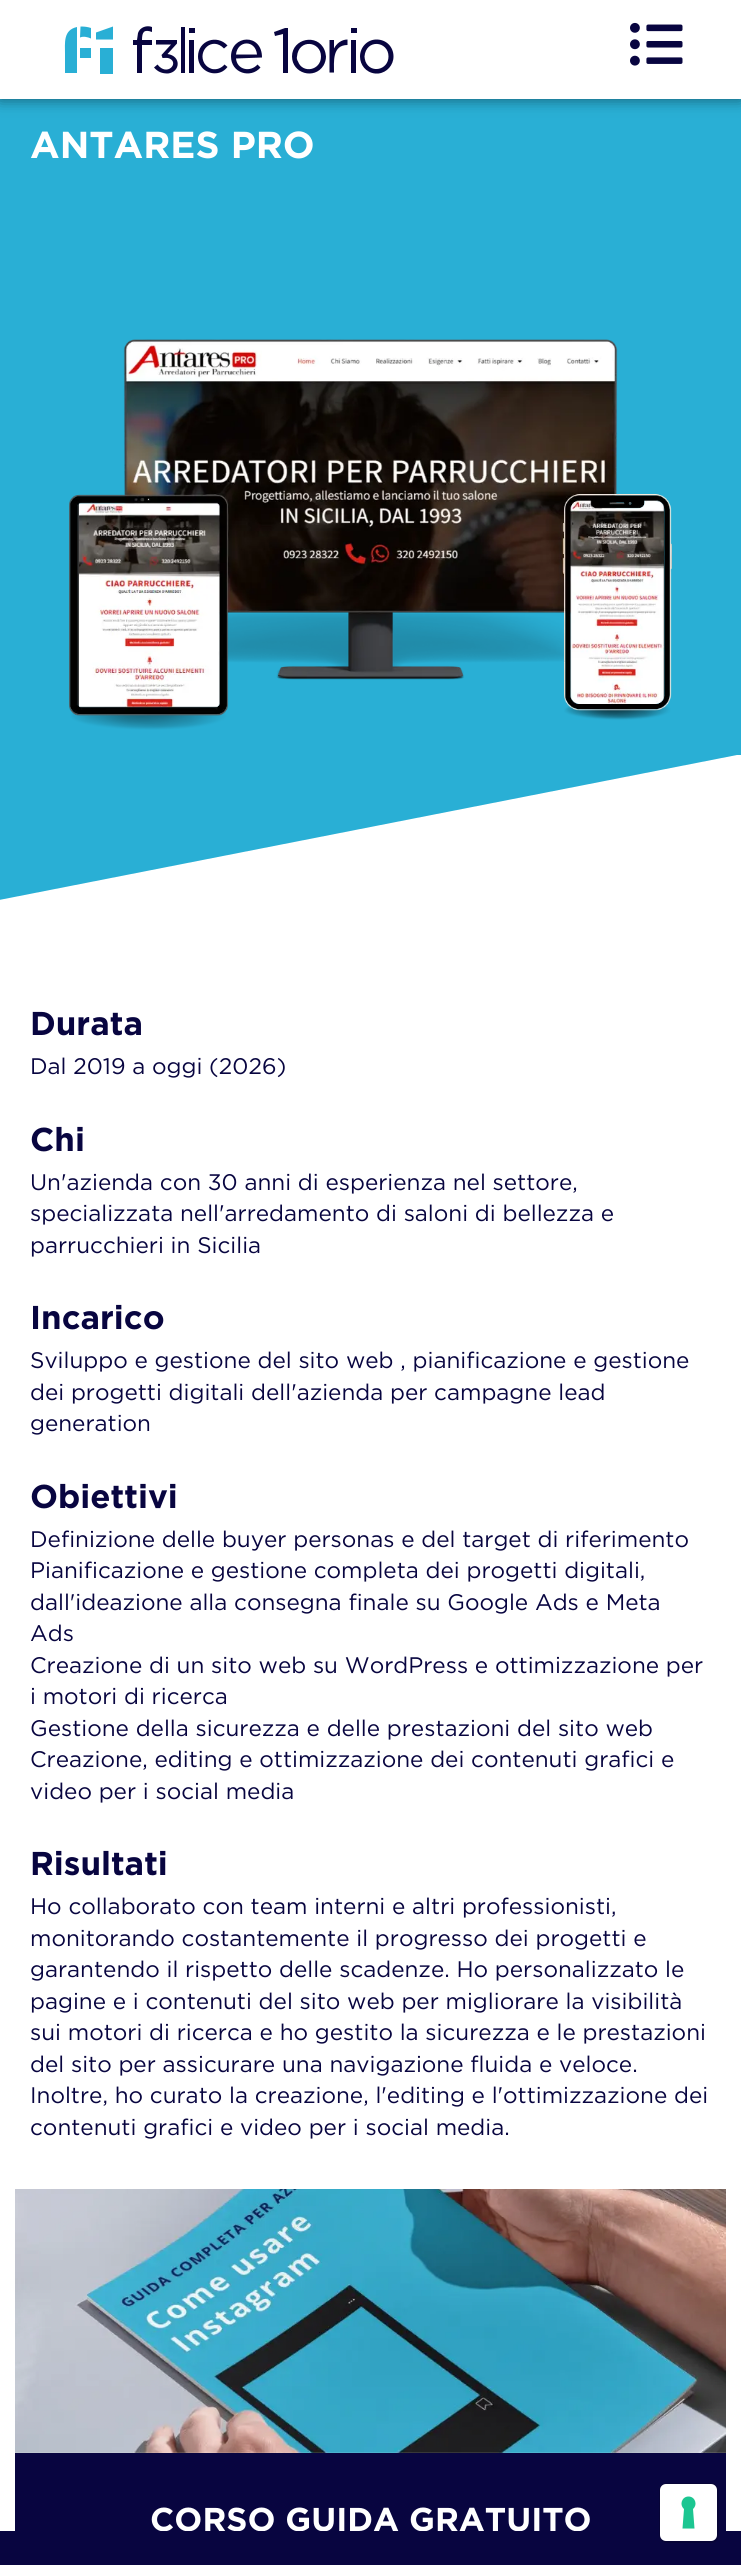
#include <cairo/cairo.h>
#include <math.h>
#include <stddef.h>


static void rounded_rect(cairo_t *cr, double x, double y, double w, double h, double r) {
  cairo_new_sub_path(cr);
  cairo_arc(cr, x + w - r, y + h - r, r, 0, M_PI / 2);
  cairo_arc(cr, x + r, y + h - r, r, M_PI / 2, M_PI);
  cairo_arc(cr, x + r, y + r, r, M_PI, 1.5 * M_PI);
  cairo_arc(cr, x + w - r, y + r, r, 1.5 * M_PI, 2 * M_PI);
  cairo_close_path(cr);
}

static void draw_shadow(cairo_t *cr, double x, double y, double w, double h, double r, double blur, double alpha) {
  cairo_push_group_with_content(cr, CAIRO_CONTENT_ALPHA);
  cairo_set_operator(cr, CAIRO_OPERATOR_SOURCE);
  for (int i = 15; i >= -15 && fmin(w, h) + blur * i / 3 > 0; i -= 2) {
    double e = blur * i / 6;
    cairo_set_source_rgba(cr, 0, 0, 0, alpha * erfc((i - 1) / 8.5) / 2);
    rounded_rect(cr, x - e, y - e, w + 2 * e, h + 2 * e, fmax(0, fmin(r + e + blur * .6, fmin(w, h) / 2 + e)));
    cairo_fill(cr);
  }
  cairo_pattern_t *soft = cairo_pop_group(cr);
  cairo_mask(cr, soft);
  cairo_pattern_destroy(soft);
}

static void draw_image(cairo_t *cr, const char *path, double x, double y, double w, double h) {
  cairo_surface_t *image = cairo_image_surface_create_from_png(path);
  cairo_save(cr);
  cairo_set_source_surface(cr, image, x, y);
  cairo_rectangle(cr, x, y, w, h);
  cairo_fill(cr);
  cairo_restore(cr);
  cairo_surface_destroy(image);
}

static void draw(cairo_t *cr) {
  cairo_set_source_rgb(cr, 41 / 255.0, 175 / 255.0, 213 / 255.0);
  cairo_paint(cr);
  cairo_set_source_rgb(cr, 0, 0, 0);
  draw_shadow(cr, 0, 0, 741, 99, 0, 7.5, 0.5);
  cairo_set_source_rgb(cr, 1, 1, 1);
  cairo_rectangle(cr, 0, 0, 741, 99);
  cairo_fill(cr);
  cairo_set_source_rgb(cr, 41 / 255.0, 175 / 255.0, 213 / 255.0);
  cairo_rectangle(cr, 100, 48, 13, 26);
  cairo_fill(cr);
  cairo_new_path(cr);
  cairo_move_to(cr, 77, 27);
  cairo_line_to(cr, 77, 73);
  cairo_line_to(cr, 65, 73);
  cairo_line_to(cr, 65, 54);
  cairo_curve_to(cr, 65, 43, 63, 30, 77, 27);
  cairo_close_path(cr);
  cairo_move_to(cr, 96, 32.5);
  cairo_line_to(cr, 96, 39.5);
  cairo_line_to(cr, 113, 39.5);
  cairo_line_to(cr, 113, 26.5);
  cairo_close_path(cr);
  cairo_fill(cr);
  cairo_rectangle(cr, 80, 48, 11, 10);
  cairo_fill(cr);
  cairo_new_path(cr);
  cairo_move_to(cr, 81, 26.5);
  cairo_curve_to(cr, 85, 26.5, 88, 27, 91, 28);
  cairo_line_to(cr, 91, 38.5);
  cairo_curve_to(cr, 87.5, 37, 83.5, 36, 80, 37.5);
  cairo_line_to(cr, 80.5, 26.5);
  cairo_close_path(cr);
  cairo_fill(cr);
  cairo_set_source_rgb(cr, 8 / 255.0, 5 / 255.0, 64 / 255.0);
  cairo_new_path(cr);
  cairo_move_to(cr, 137, 45);
  cairo_line_to(cr, 137, 73);
  cairo_line_to(cr, 142, 73);
  cairo_line_to(cr, 142, 45);
  cairo_line_to(cr, 152, 45);
  cairo_line_to(cr, 152, 40);
  cairo_line_to(cr, 142, 40);
  cairo_curve_to(cr, 142, 32, 144, 29, 152, 32);
  cairo_line_to(cr, 152, 27);
  cairo_curve_to(cr, 147, 25, 140, 27, 138, 33);
  cairo_line_to(cr, 137, 40);
  cairo_line_to(cr, 133, 40);
  cairo_line_to(cr, 133, 45);
  cairo_close_path(cr);
  cairo_move_to(cr, 168, 73.5);
  cairo_curve_to(cr, 162, 73.5, 158, 72, 154, 67.5);
  cairo_line_to(cr, 157.5, 64.5);
  cairo_curve_to(cr, 167, 77, 179.5, 63, 169.5, 58.5);
  cairo_curve_to(cr, 167.5, 57.5, 165, 58, 162.5, 58);
  cairo_line_to(cr, 161.5, 55);
  cairo_line_to(cr, 171, 44.5);
  cairo_line_to(cr, 156, 44.5);
  cairo_line_to(cr, 156, 40);
  cairo_line_to(cr, 177, 40);
  cairo_line_to(cr, 177, 43.5);
  cairo_line_to(cr, 167.5, 54);
  cairo_curve_to(cr, 181.5, 56, 180.5, 72, 168, 73.5);
  cairo_close_path(cr);
  cairo_fill(cr);
  cairo_rectangle(cr, 181, 27, 4, 46);
  cairo_fill(cr);
  cairo_set_fill_rule(cr, CAIRO_FILL_RULE_EVEN_ODD);
  cairo_new_path(cr);
  cairo_move_to(cr, 189, 28);
  cairo_line_to(cr, 189, 33);
  cairo_line_to(cr, 195, 33);
  cairo_line_to(cr, 195, 28);
  cairo_close_path(cr);
  cairo_move_to(cr, 189, 40);
  cairo_line_to(cr, 189, 73);
  cairo_line_to(cr, 194, 73);
  cairo_line_to(cr, 194, 40);
  cairo_close_path(cr);
  cairo_fill(cr);
  cairo_set_fill_rule(cr, CAIRO_FILL_RULE_WINDING);
  cairo_new_path(cr);
  cairo_move_to(cr, 198, 56.5);
  cairo_curve_to(cr, 198, 40.5, 217, 34, 227.5, 45.5);
  cairo_line_to(cr, 224, 48.5);
  cairo_curve_to(cr, 212, 36, 197, 51, 204.5, 63.5);
  cairo_curve_to(cr, 206.5, 66.5, 209, 68, 212, 69);
  cairo_curve_to(cr, 217, 70, 221.5, 68, 224.5, 64.5);
  cairo_line_to(cr, 227.5, 67);
  cairo_curve_to(cr, 225.5, 69.5, 223, 71.5, 220, 72.5);
  cairo_curve_to(cr, 209, 76, 198, 68, 198, 56.5);
  cairo_close_path(cr);
  cairo_fill(cr);
  cairo_set_fill_rule(cr, CAIRO_FILL_RULE_EVEN_ODD);
  cairo_new_path(cr);
  cairo_move_to(cr, 231, 56.5);
  cairo_curve_to(cr, 231, 35, 262, 32.5, 262, 57.5);
  cairo_line_to(cr, 236, 58.5);
  cairo_curve_to(cr, 237, 70, 250.5, 72.5, 257.5, 64.5);
  cairo_line_to(cr, 260.5, 67.5);
  cairo_curve_to(cr, 250.5, 79, 231, 73, 231, 56.5);
  cairo_close_path(cr);
  cairo_move_to(cr, 257, 54.5);
  cairo_line_to(cr, 236, 54.5);
  cairo_curve_to(cr, 237.5, 40, 255.5, 39.5, 257, 54.5);
  cairo_close_path(cr);
  cairo_fill(cr);
  cairo_set_fill_rule(cr, CAIRO_FILL_RULE_WINDING);
  cairo_new_path(cr);
  cairo_move_to(cr, 283, 34);
  cairo_line_to(cr, 283, 73);
  cairo_line_to(cr, 288, 73);
  cairo_line_to(cr, 288, 28);
  cairo_line_to(cr, 285, 28);
  cairo_line_to(cr, 274, 32);
  cairo_line_to(cr, 275, 36);
  cairo_close_path(cr);
  cairo_fill(cr);
  cairo_set_fill_rule(cr, CAIRO_FILL_RULE_EVEN_ODD);
  cairo_new_path(cr);
  cairo_move_to(cr, 292, 56.5);
  cairo_curve_to(cr, 292, 38.5, 317.5, 33, 324.5, 50);
  cairo_curve_to(cr, 325.5, 52.5, 325.5, 53.5, 326, 56.5);
  cairo_curve_to(cr, 326, 59.5, 325, 63, 323.5, 65.5);
  cairo_curve_to(cr, 314.5, 80, 292, 73.5, 292, 56.5);
  cairo_close_path(cr);
  cairo_move_to(cr, 321, 56.5);
  cairo_curve_to(cr, 321, 70.5, 302.5, 74, 298, 61.5);
  cairo_curve_to(cr, 297, 60, 296.5, 58, 297, 56.5);
  cairo_curve_to(cr, 298.5, 38.5, 321, 41, 321, 56.5);
  cairo_close_path(cr);
  cairo_fill(cr);
  cairo_set_fill_rule(cr, CAIRO_FILL_RULE_WINDING);
  cairo_new_path(cr);
  cairo_move_to(cr, 329.5, 40);
  cairo_line_to(cr, 329.5, 72.5);
  cairo_line_to(cr, 334, 72.5);
  cairo_curve_to(cr, 334, 62, 332, 45, 347.5, 45);
  cairo_line_to(cr, 347.5, 39.5);
  cairo_curve_to(cr, 341.5, 39.5, 336.5, 43.5, 334, 48.5);
  cairo_line_to(cr, 334, 40);
  cairo_close_path(cr);
  cairo_fill(cr);
  cairo_set_fill_rule(cr, CAIRO_FILL_RULE_EVEN_ODD);
  cairo_new_path(cr);
  cairo_move_to(cr, 351, 28);
  cairo_line_to(cr, 351, 33);
  cairo_line_to(cr, 357, 33);
  cairo_line_to(cr, 357, 28);
  cairo_close_path(cr);
  cairo_move_to(cr, 351, 40);
  cairo_line_to(cr, 351, 73);
  cairo_line_to(cr, 356, 73);
  cairo_line_to(cr, 356, 40);
  cairo_close_path(cr);
  cairo_move_to(cr, 378.5, 73.5);
  cairo_line_to(cr, 375, 73.5);
  cairo_curve_to(cr, 366, 72.5, 360, 65, 360, 56.5);
  cairo_curve_to(cr, 360, 47.5, 367, 39.5, 376.5, 39.5);
  cairo_curve_to(cr, 386.5, 39.5, 393.5, 47, 393.5, 56.5);
  cairo_curve_to(cr, 393.5, 65, 387, 72.5, 378.5, 73.5);
  cairo_close_path(cr);
  cairo_move_to(cr, 388.5, 56.5);
  cairo_curve_to(cr, 388.5, 70, 370.5, 74, 365.5, 61.5);
  cairo_curve_to(cr, 365, 60, 364.5, 58, 364.5, 56.5);
  cairo_curve_to(cr, 366, 38.5, 388.5, 41, 388.5, 56.5);
  cairo_close_path(cr);
  cairo_fill(cr);
  draw_image(cr, "images/1.png", 630, 22, 53, 44);
  draw_image(cr, "images/2.png", 69, 339, 603, 391);
  cairo_save(cr);
  cairo_set_fill_rule(cr, CAIRO_FILL_RULE_WINDING);
  cairo_rectangle(cr, 0, 755, 741, 154);
  cairo_clip(cr);
  cairo_set_source_rgb(cr, 1, 1, 1);
  cairo_new_path(cr);
  cairo_move_to(cr, -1, 900);
  cairo_line_to(cr, -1, 909);
  cairo_line_to(cr, 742, 909);
  cairo_line_to(cr, 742, 754);
  cairo_close_path(cr);
  cairo_fill(cr);
  cairo_restore(cr);
  cairo_set_source_rgb(cr, 1, 1, 1);
  cairo_rectangle(cr, 0, 909, 741, 1622);
  cairo_fill(cr);
  draw_image(cr, "images/3.png", 15, 2189, 711, 264);
  cairo_set_source_rgb(cr, 8 / 255.0, 5 / 255.0, 64 / 255.0);
  cairo_rectangle(cr, 15, 2453, 711, 78);
  cairo_fill(cr);
  cairo_select_font_face(cr, "Gotham", CAIRO_FONT_SLANT_NORMAL, CAIRO_FONT_WEIGHT_BOLD);
  cairo_set_font_size(cr, 37.5);
  cairo_set_source_rgb(cr, 1, 1, 1);
  cairo_move_to(cr, 30, 158);
  cairo_show_text(cr, "ANTARES PRO");
  cairo_set_font_size(cr, 33);
  cairo_set_source_rgb(cr, 8 / 255.0, 5 / 255.0, 64 / 255.0);
  cairo_move_to(cr, 30, 1035);
  cairo_show_text(cr, "Durata");
  cairo_select_font_face(cr, "Gotham", CAIRO_FONT_SLANT_NORMAL, CAIRO_FONT_WEIGHT_NORMAL);
  cairo_set_font_size(cr, 22.5);
  cairo_move_to(cr, 30, 1074);
  cairo_show_text(cr, "Dal 2019 a oggi (2026)");
  cairo_select_font_face(cr, "Gotham", CAIRO_FONT_SLANT_NORMAL, CAIRO_FONT_WEIGHT_BOLD);
  cairo_set_font_size(cr, 33);
  cairo_move_to(cr, 30, 1151);
  cairo_show_text(cr, "Chi");
  cairo_select_font_face(cr, "Gotham", CAIRO_FONT_SLANT_NORMAL, CAIRO_FONT_WEIGHT_NORMAL);
  cairo_set_font_size(cr, 22.5);
  cairo_move_to(cr, 30, 1190);
  cairo_show_text(cr, "Un'azienda con 30 anni di esperienza nel settore,");
  cairo_move_to(cr, 30, 1221);
  cairo_show_text(cr, "specializzata nell'arredamento di saloni di bellezza e");
  cairo_move_to(cr, 30, 1253);
  cairo_show_text(cr, "parrucchieri in Sicilia");
  cairo_select_font_face(cr, "Gotham", CAIRO_FONT_SLANT_NORMAL, CAIRO_FONT_WEIGHT_BOLD);
  cairo_set_font_size(cr, 33);
  cairo_move_to(cr, 30, 1329);
  cairo_show_text(cr, "Incarico");
  cairo_select_font_face(cr, "Gotham", CAIRO_FONT_SLANT_NORMAL, CAIRO_FONT_WEIGHT_NORMAL);
  cairo_set_font_size(cr, 22.5);
  cairo_move_to(cr, 30, 1368);
  cairo_show_text(cr, "Sviluppo e gestione del sito web , pianificazione e gestione");
  cairo_move_to(cr, 30, 1400);
  cairo_show_text(cr, "dei progetti digitali dell'azienda per campagne lead");
  cairo_move_to(cr, 30, 1431);
  cairo_show_text(cr, "generation");
  cairo_select_font_face(cr, "Gotham", CAIRO_FONT_SLANT_NORMAL, CAIRO_FONT_WEIGHT_BOLD);
  cairo_set_font_size(cr, 33);
  cairo_move_to(cr, 30, 1508);
  cairo_show_text(cr, "Obiettivi");
  cairo_select_font_face(cr, "Gotham", CAIRO_FONT_SLANT_NORMAL, CAIRO_FONT_WEIGHT_NORMAL);
  cairo_set_font_size(cr, 22.5);
  cairo_move_to(cr, 30, 1547);
  cairo_show_text(cr, "Definizione delle buyer personas e del target di riferimento");
  cairo_move_to(cr, 30, 1578);
  cairo_show_text(cr, "Pianificazione e gestione completa dei progetti digitali,");
  cairo_move_to(cr, 30, 1610);
  cairo_show_text(cr, "dall'ideazione alla consegna finale su Google Ads e Meta");
  cairo_move_to(cr, 30, 1641);
  cairo_show_text(cr, "Ads");
  cairo_move_to(cr, 30, 1673);
  cairo_show_text(cr, "Creazione di un sito web su WordPress e ottimizzazione per");
  cairo_move_to(cr, 30, 1704);
  cairo_show_text(cr, "i motori di ricerca");
  cairo_move_to(cr, 30, 1736);
  cairo_show_text(cr, "Gestione della sicurezza e delle prestazioni del sito web");
  cairo_move_to(cr, 30, 1767);
  cairo_show_text(cr, "Creazione, editing e ottimizzazione dei contenuti grafici e");
  cairo_move_to(cr, 30, 1799);
  cairo_show_text(cr, "video per i social media");
  cairo_select_font_face(cr, "Gotham", CAIRO_FONT_SLANT_NORMAL, CAIRO_FONT_WEIGHT_BOLD);
  cairo_set_font_size(cr, 33);
  cairo_move_to(cr, 30, 1875);
  cairo_show_text(cr, "Risultati");
  cairo_select_font_face(cr, "Gotham", CAIRO_FONT_SLANT_NORMAL, CAIRO_FONT_WEIGHT_NORMAL);
  cairo_set_font_size(cr, 22.5);
  cairo_move_to(cr, 30, 1914);
  cairo_show_text(cr, "Ho collaborato con team interni e altri professionisti,");
  cairo_move_to(cr, 30, 1946);
  cairo_show_text(cr, "monitorando costantemente il progresso dei progetti e");
  cairo_move_to(cr, 30, 1977);
  cairo_show_text(cr, "garantendo il rispetto delle scadenze. Ho personalizzato le");
  cairo_move_to(cr, 30, 2009);
  cairo_show_text(cr, "pagine e i contenuti del sito web per migliorare la visibilità");
  cairo_move_to(cr, 30, 2040);
  cairo_show_text(cr, "sui motori di ricerca e ho gestito la sicurezza e le prestazioni");
  cairo_move_to(cr, 30, 2072);
  cairo_show_text(cr, "del sito per assicurare una navigazione fluida e veloce.");
  cairo_move_to(cr, 30, 2103);
  cairo_show_text(cr, "Inoltre, ho curato la creazione, l'editing e l'ottimizzazione dei");
  cairo_move_to(cr, 30, 2135);
  cairo_show_text(cr, "contenuti grafici e video per i social media.");
  cairo_select_font_face(cr, "Gotham", CAIRO_FONT_SLANT_NORMAL, CAIRO_FONT_WEIGHT_BOLD);
  cairo_set_font_size(cr, 33);
  cairo_set_source_rgb(cr, 1, 1, 1);
  cairo_move_to(cr, 150, 2531);
  cairo_show_text(cr, "CORSO GUIDA GRATUITO");
  cairo_set_source_rgb(cr, 8 / 255.0, 5 / 255.0, 64 / 255.0);
  cairo_rectangle(cr, 0, 2531, 741, 34);
  cairo_fill(cr);
  rounded_rect(cr, 660, 2484, 58, 58, 7);
  cairo_set_source_rgb(cr, 7 / 255.0, 4 / 255.0, 54 / 255.0);
  cairo_stroke(cr);
  cairo_set_source_rgb(cr, 1, 1, 1);
  rounded_rect(cr, 660, 2484, 57, 57, 6);
  cairo_fill(cr);
  cairo_set_source_rgb(cr, 28 / 255.0, 198 / 255.0, 145 / 255.0);
  cairo_new_path(cr);
  cairo_move_to(cr, 688.5, 2496.5);
  cairo_curve_to(cr, 695, 2496.5, 698, 2504.5, 693, 2509);
  cairo_line_to(cr, 694.5, 2528.5);
  cairo_line_to(cr, 682.5, 2528.5);
  cairo_line_to(cr, 684, 2509);
  cairo_curve_to(cr, 679, 2504.5, 682, 2496.5, 688.5, 2496.5);
  cairo_close_path(cr);
  cairo_fill(cr);
}

int main(void) {
  cairo_surface_t *surface = cairo_image_surface_create(CAIRO_FORMAT_RGB24, 741, 2565);
  cairo_t *cr = cairo_create(surface);
  cairo_font_options_t *options = cairo_font_options_create();
  cairo_font_options_set_hint_metrics(options, CAIRO_HINT_METRICS_OFF);
  cairo_font_options_set_hint_style(options, CAIRO_HINT_STYLE_NONE);
  cairo_set_font_options(cr, options);
  cairo_set_miter_limit(cr, 4);
  draw(cr);
  cairo_surface_write_to_png(surface, "out.png");
  cairo_font_options_destroy(options);
  cairo_destroy(cr);
  cairo_surface_destroy(surface);
  return 0;
}
